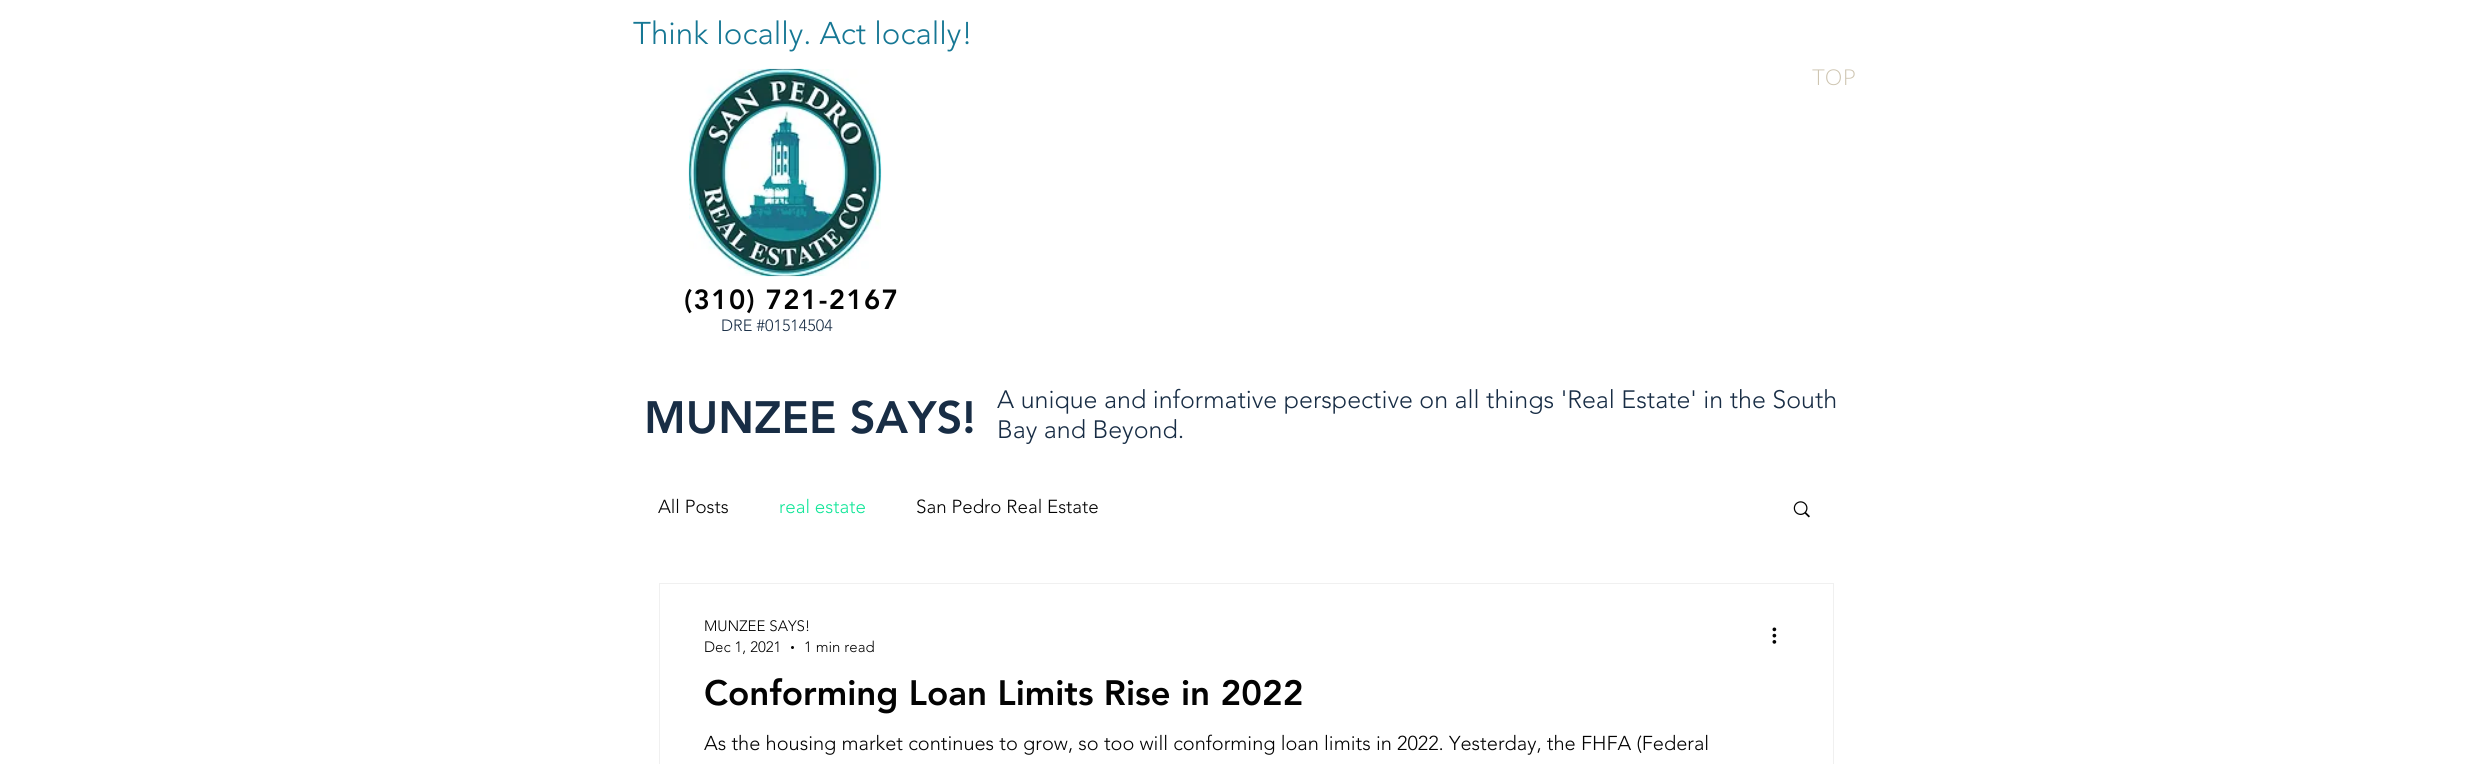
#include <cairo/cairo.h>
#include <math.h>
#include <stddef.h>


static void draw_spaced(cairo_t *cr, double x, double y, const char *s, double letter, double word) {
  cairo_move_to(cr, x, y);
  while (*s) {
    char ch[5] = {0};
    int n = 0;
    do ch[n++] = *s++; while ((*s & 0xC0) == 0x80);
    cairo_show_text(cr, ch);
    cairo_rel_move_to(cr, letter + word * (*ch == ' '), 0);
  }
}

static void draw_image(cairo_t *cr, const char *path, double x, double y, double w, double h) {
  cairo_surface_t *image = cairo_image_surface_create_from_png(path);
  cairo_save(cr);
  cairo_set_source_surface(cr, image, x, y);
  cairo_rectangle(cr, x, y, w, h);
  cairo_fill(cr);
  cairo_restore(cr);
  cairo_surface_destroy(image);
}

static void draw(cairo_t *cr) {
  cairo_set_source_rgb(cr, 1, 1, 1);
  cairo_paint(cr);
  draw_image(cr, "images/1.png", 688, 68, 194, 209);
  draw_image(cr, "images/2.png", 1793, 501, 17, 17);
  cairo_rectangle(cr, 659.5, 583.5, 1174, 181);
  cairo_set_source_rgb(cr, 240 / 255.0, 240 / 255.0, 240 / 255.0);
  cairo_set_line_width(cr, 1);
  cairo_stroke(cr);
  cairo_set_source_rgb(cr, 3 / 255.0, 3 / 255.0, 3 / 255.0);
  cairo_arc(cr, 792.5, 647.5, 1.5, 0, 2 * M_PI);
  cairo_fill(cr);
  draw_image(cr, "images/3.png", 1772, 627, 5, 17);
  cairo_select_font_face(cr, "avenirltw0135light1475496 Light", CAIRO_FONT_SLANT_NORMAL, CAIRO_FONT_WEIGHT_NORMAL);
  cairo_set_font_size(cr, 31.25);
  cairo_set_source_rgb(cr, 22 / 255.0, 119 / 255.0, 148 / 255.0);
  cairo_move_to(cr, 633, 44);
  cairo_show_text(cr, "Think locally. Act locally!");
  cairo_select_font_face(cr, "Lato Light", CAIRO_FONT_SLANT_NORMAL, CAIRO_FONT_WEIGHT_NORMAL);
  cairo_set_font_size(cr, 22);
  cairo_set_source_rgb(cr, 206 / 255.0, 197 / 255.0, 177 / 255.0);
  cairo_move_to(cr, 1812, 85);
  cairo_show_text(cr, "TOP");
  cairo_select_font_face(cr, "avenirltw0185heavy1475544 Black", CAIRO_FONT_SLANT_NORMAL, CAIRO_FONT_WEIGHT_NORMAL);
  cairo_set_font_size(cr, 27.5);
  cairo_set_source_rgb(cr, 3 / 255.0, 3 / 255.0, 3 / 255.0);
  draw_spaced(cr, 684, 309, "(310) 721-2167", 1.4, 0);
  cairo_select_font_face(cr, "avenirltw0135light1475496 Light", CAIRO_FONT_SLANT_NORMAL, CAIRO_FONT_WEIGHT_NORMAL);
  cairo_set_font_size(cr, 16.25);
  cairo_set_source_rgb(cr, 24 / 255.0, 45 / 255.0, 69 / 255.0);
  cairo_move_to(cr, 721, 331);
  cairo_show_text(cr, "DRE #01514504");
  cairo_select_font_face(cr, "avenirltw0185heavy1475544 Black", CAIRO_FONT_SLANT_NORMAL, CAIRO_FONT_WEIGHT_NORMAL);
  cairo_set_font_size(cr, 45);
  cairo_move_to(cr, 644, 433);
  cairo_show_text(cr, "MUNZEE SAYS!");
  cairo_select_font_face(cr, "avenirltw0135light1475496 Light", CAIRO_FONT_SLANT_NORMAL, CAIRO_FONT_WEIGHT_NORMAL);
  cairo_set_font_size(cr, 25);
  cairo_move_to(cr, 997, 408);
  cairo_show_text(cr, "A unique and informative perspective on all things 'Real Estate' in the South");
  cairo_move_to(cr, 997, 438);
  cairo_show_text(cr, "Bay and Beyond.");
  cairo_set_font_size(cr, 18.75);
  cairo_set_source_rgb(cr, 3 / 255.0, 3 / 255.0, 3 / 255.0);
  cairo_move_to(cr, 658, 513);
  cairo_show_text(cr, "All Posts");
  cairo_set_source_rgb(cr, 16 / 255.0, 230 / 255.0, 152 / 255.0);
  cairo_move_to(cr, 779, 513);
  cairo_show_text(cr, "real estate");
  cairo_set_source_rgb(cr, 3 / 255.0, 3 / 255.0, 3 / 255.0);
  cairo_move_to(cr, 916, 513);
  cairo_show_text(cr, "San Pedro Real Estate");
  cairo_set_font_size(cr, 15);
  cairo_move_to(cr, 704, 631);
  cairo_show_text(cr, "MUNZEE SAYS!");
  cairo_move_to(cr, 704, 652);
  cairo_show_text(cr, "Dec 1, 2021");
  cairo_move_to(cr, 804, 652);
  cairo_show_text(cr, "1 min read");
  cairo_select_font_face(cr, "avenirltw0185heavy1475544 Black", CAIRO_FONT_SLANT_NORMAL, CAIRO_FONT_WEIGHT_NORMAL);
  cairo_set_font_size(cr, 35);
  cairo_move_to(cr, 704, 705);
  cairo_show_text(cr, "Conforming Loan Limits Rise in 2022");
  cairo_select_font_face(cr, "avenirltw0135light1475496 Light", CAIRO_FONT_SLANT_NORMAL, CAIRO_FONT_WEIGHT_NORMAL);
  cairo_set_font_size(cr, 20);
  cairo_move_to(cr, 704, 750);
  cairo_show_text(cr, "As the housing market continues to grow, so too will conforming loan limits in 2022. Yesterday, the FHFA (Federal");
}

int main(void) {
  cairo_surface_t *surface = cairo_image_surface_create(CAIRO_FORMAT_RGB24, 2491, 764);
  cairo_t *cr = cairo_create(surface);
  cairo_font_options_t *options = cairo_font_options_create();
  cairo_font_options_set_hint_metrics(options, CAIRO_HINT_METRICS_OFF);
  cairo_font_options_set_hint_style(options, CAIRO_HINT_STYLE_NONE);
  cairo_set_font_options(cr, options);
  cairo_set_miter_limit(cr, 4);
  draw(cr);
  cairo_surface_write_to_png(surface, "out.png");
  cairo_font_options_destroy(options);
  cairo_destroy(cr);
  cairo_surface_destroy(surface);
  return 0;
}
